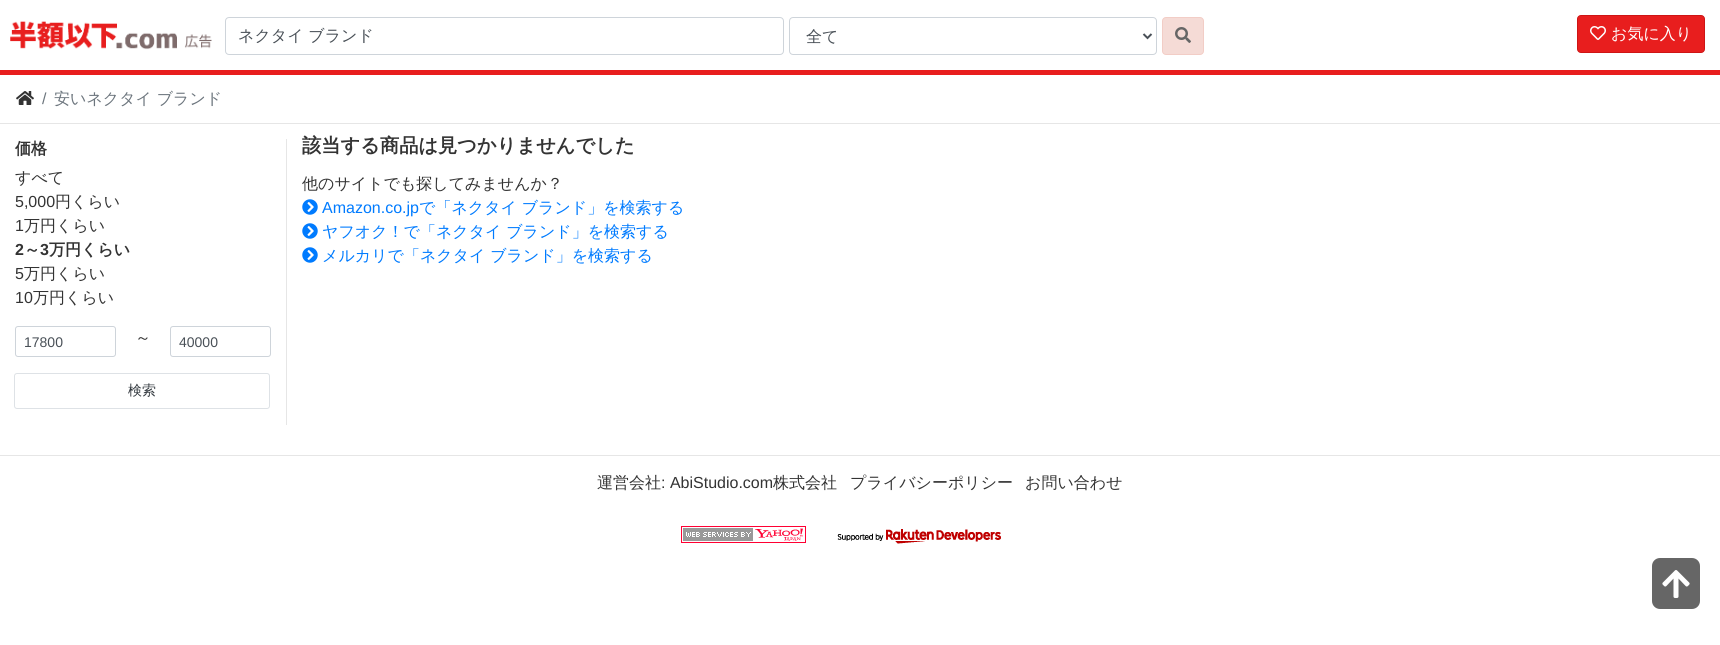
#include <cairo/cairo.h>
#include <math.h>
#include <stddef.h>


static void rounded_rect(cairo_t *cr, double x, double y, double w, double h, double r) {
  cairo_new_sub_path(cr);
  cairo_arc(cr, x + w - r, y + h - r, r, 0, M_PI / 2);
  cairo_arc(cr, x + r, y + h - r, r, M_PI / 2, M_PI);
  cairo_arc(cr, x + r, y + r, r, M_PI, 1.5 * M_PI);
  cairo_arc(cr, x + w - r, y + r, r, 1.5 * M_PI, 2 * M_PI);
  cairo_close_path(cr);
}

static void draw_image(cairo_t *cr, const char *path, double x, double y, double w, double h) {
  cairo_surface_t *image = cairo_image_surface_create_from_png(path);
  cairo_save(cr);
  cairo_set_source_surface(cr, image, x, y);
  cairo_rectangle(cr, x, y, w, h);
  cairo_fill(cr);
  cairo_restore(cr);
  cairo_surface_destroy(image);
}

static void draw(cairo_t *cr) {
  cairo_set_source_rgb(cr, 1, 1, 1);
  cairo_paint(cr);
  draw_image(cr, "images/1.png", 10, 21, 202, 29);
  rounded_rect(cr, 225.5, 17.5, 558, 37, 3.5);
  cairo_set_source_rgb(cr, 206 / 255.0, 212 / 255.0, 218 / 255.0);
  cairo_set_line_width(cr, 1);
  cairo_stroke(cr);
  rounded_rect(cr, 789.5, 17.5, 367, 37, 3.5);
  cairo_stroke(cr);
  cairo_new_path(cr);
  cairo_move_to(cr, 1143.5, 34);
  cairo_line_to(cr, 1147.5, 38);
  cairo_line_to(cr, 1151.5, 34);
  cairo_set_source_rgb(cr, 73 / 255.0, 80 / 255.0, 87 / 255.0);
  cairo_set_line_width(cr, 2);
  cairo_stroke(cr);
  cairo_set_source_rgb(cr, 245 / 255.0, 219 / 255.0, 214 / 255.0);
  rounded_rect(cr, 1162.5, 17.5, 41, 37, 3.5);
  cairo_fill_preserve(cr);
  cairo_set_source_rgb(cr, 242 / 255.0, 205 / 255.0, 198 / 255.0);
  cairo_set_line_width(cr, 1);
  cairo_stroke(cr);
  draw_image(cr, "images/2.png", 1175, 27, 16, 16);
  cairo_set_source_rgb(cr, 232 / 255.0, 30 / 255.0, 30 / 255.0);
  rounded_rect(cr, 1577.5, 15.5, 127, 37, 3.5);
  cairo_fill_preserve(cr);
  cairo_set_source_rgb(cr, 206 / 255.0, 21 / 255.0, 21 / 255.0);
  cairo_stroke(cr);
  draw_image(cr, "images/3.png", 1590, 26, 16, 14);
  cairo_set_source_rgb(cr, 232 / 255.0, 30 / 255.0, 30 / 255.0);
  cairo_rectangle(cr, 0, 70, 1720, 5);
  cairo_fill(cr);
  cairo_set_source_rgb(cr, 230 / 255.0, 230 / 255.0, 230 / 255.0);
  cairo_rectangle(cr, 0, 123, 1720, 1);
  cairo_fill(cr);
  draw_image(cr, "images/4.png", 16, 91, 18, 14);
  cairo_rectangle(cr, 286, 139, 1, 286);
  cairo_fill(cr);
  rounded_rect(cr, 15.5, 326.5, 100, 30, 2.5);
  cairo_set_source_rgb(cr, 206 / 255.0, 212 / 255.0, 218 / 255.0);
  cairo_stroke(cr);
  rounded_rect(cr, 170.5, 326.5, 100, 30, 2.5);
  cairo_stroke(cr);
  rounded_rect(cr, 14.5, 373.5, 255, 35, 2.5);
  cairo_set_source_rgb(cr, 222 / 255.0, 226 / 255.0, 230 / 255.0);
  cairo_stroke(cr);
  draw_image(cr, "images/5.png", 302, 199, 16, 16);
  draw_image(cr, "images/5.png", 302, 223, 16, 16);
  draw_image(cr, "images/5.png", 302, 247, 16, 16);
  cairo_set_source_rgb(cr, 230 / 255.0, 230 / 255.0, 230 / 255.0);
  cairo_rectangle(cr, 0, 455, 1720, 1);
  cairo_fill(cr);
  draw_image(cr, "images/6.png", 681, 526, 125, 17);
  draw_image(cr, "images/7.png", 837, 529, 164, 15);
  cairo_set_source_rgb(cr, 102 / 255.0, 102 / 255.0, 102 / 255.0);
  rounded_rect(cr, 1652, 558, 48, 51, 8);
  cairo_fill(cr);
  draw_image(cr, "images/8.png", 1662, 570, 28, 28);
  cairo_select_font_face(cr, "WenQuanYi Zen Hei Medium", CAIRO_FONT_SLANT_NORMAL, CAIRO_FONT_WEIGHT_NORMAL);
  cairo_set_font_size(cr, 16);
  cairo_set_source_rgb(cr, 73 / 255.0, 80 / 255.0, 87 / 255.0);
  cairo_move_to(cr, 238, 41);
  cairo_show_text(cr, "ネクタイ ブランド");
  cairo_move_to(cr, 806, 42);
  cairo_show_text(cr, "全て");
  cairo_set_source_rgb(cr, 1, 1, 1);
  cairo_move_to(cr, 1611, 39);
  cairo_show_text(cr, "お気に入り");
  cairo_select_font_face(cr, "Liberation Sans", CAIRO_FONT_SLANT_NORMAL, CAIRO_FONT_WEIGHT_NORMAL);
  cairo_set_source_rgb(cr, 108 / 255.0, 117 / 255.0, 125 / 255.0);
  cairo_move_to(cr, 42, 104);
  cairo_show_text(cr, "/");
  cairo_select_font_face(cr, "WenQuanYi Zen Hei Medium", CAIRO_FONT_SLANT_NORMAL, CAIRO_FONT_WEIGHT_NORMAL);
  cairo_move_to(cr, 54, 104);
  cairo_show_text(cr, "安いネクタイ ブランド");
  cairo_select_font_face(cr, "WenQuanYi Zen Hei", CAIRO_FONT_SLANT_NORMAL, CAIRO_FONT_WEIGHT_BOLD);
  cairo_set_source_rgb(cr, 51 / 255.0, 51 / 255.0, 51 / 255.0);
  cairo_move_to(cr, 15, 154);
  cairo_show_text(cr, "価格");
  cairo_select_font_face(cr, "WenQuanYi Zen Hei Medium", CAIRO_FONT_SLANT_NORMAL, CAIRO_FONT_WEIGHT_NORMAL);
  cairo_move_to(cr, 15, 183);
  cairo_show_text(cr, "すべて");
  cairo_select_font_face(cr, "Liberation Sans", CAIRO_FONT_SLANT_NORMAL, CAIRO_FONT_WEIGHT_NORMAL);
  cairo_move_to(cr, 15, 207);
  cairo_show_text(cr, "5,000");
  cairo_select_font_face(cr, "WenQuanYi Zen Hei Medium", CAIRO_FONT_SLANT_NORMAL, CAIRO_FONT_WEIGHT_NORMAL);
  cairo_move_to(cr, 55, 207);
  cairo_show_text(cr, "円くらい");
  cairo_select_font_face(cr, "Liberation Sans", CAIRO_FONT_SLANT_NORMAL, CAIRO_FONT_WEIGHT_NORMAL);
  cairo_move_to(cr, 15, 231);
  cairo_show_text(cr, "1");
  cairo_select_font_face(cr, "WenQuanYi Zen Hei Medium", CAIRO_FONT_SLANT_NORMAL, CAIRO_FONT_WEIGHT_NORMAL);
  cairo_move_to(cr, 24, 231);
  cairo_show_text(cr, "万円くらい");
  cairo_select_font_face(cr, "Liberation Sans", CAIRO_FONT_SLANT_NORMAL, CAIRO_FONT_WEIGHT_BOLD);
  cairo_move_to(cr, 15, 255);
  cairo_show_text(cr, "2");
  cairo_select_font_face(cr, "WenQuanYi Zen Hei", CAIRO_FONT_SLANT_NORMAL, CAIRO_FONT_WEIGHT_BOLD);
  cairo_move_to(cr, 24, 255);
  cairo_show_text(cr, "～");
  cairo_select_font_face(cr, "Liberation Sans", CAIRO_FONT_SLANT_NORMAL, CAIRO_FONT_WEIGHT_BOLD);
  cairo_move_to(cr, 40, 255);
  cairo_show_text(cr, "3");
  cairo_select_font_face(cr, "WenQuanYi Zen Hei", CAIRO_FONT_SLANT_NORMAL, CAIRO_FONT_WEIGHT_BOLD);
  cairo_move_to(cr, 49, 255);
  cairo_show_text(cr, "万円くらい");
  cairo_select_font_face(cr, "Liberation Sans", CAIRO_FONT_SLANT_NORMAL, CAIRO_FONT_WEIGHT_NORMAL);
  cairo_move_to(cr, 15, 279);
  cairo_show_text(cr, "5");
  cairo_select_font_face(cr, "WenQuanYi Zen Hei Medium", CAIRO_FONT_SLANT_NORMAL, CAIRO_FONT_WEIGHT_NORMAL);
  cairo_move_to(cr, 24, 279);
  cairo_show_text(cr, "万円くらい");
  cairo_select_font_face(cr, "Liberation Sans", CAIRO_FONT_SLANT_NORMAL, CAIRO_FONT_WEIGHT_NORMAL);
  cairo_move_to(cr, 15, 303);
  cairo_show_text(cr, "10");
  cairo_select_font_face(cr, "WenQuanYi Zen Hei Medium", CAIRO_FONT_SLANT_NORMAL, CAIRO_FONT_WEIGHT_NORMAL);
  cairo_move_to(cr, 33, 303);
  cairo_show_text(cr, "万円くらい");
  cairo_select_font_face(cr, "Liberation Sans", CAIRO_FONT_SLANT_NORMAL, CAIRO_FONT_WEIGHT_NORMAL);
  cairo_set_font_size(cr, 14);
  cairo_set_source_rgb(cr, 73 / 255.0, 80 / 255.0, 87 / 255.0);
  cairo_move_to(cr, 24, 347);
  cairo_show_text(cr, "17800");
  cairo_select_font_face(cr, "WenQuanYi Zen Hei Medium", CAIRO_FONT_SLANT_NORMAL, CAIRO_FONT_WEIGHT_NORMAL);
  cairo_set_font_size(cr, 16);
  cairo_set_source_rgb(cr, 51 / 255.0, 51 / 255.0, 51 / 255.0);
  cairo_move_to(cr, 135, 343);
  cairo_show_text(cr, "～");
  cairo_select_font_face(cr, "Liberation Sans", CAIRO_FONT_SLANT_NORMAL, CAIRO_FONT_WEIGHT_NORMAL);
  cairo_set_font_size(cr, 14);
  cairo_set_source_rgb(cr, 73 / 255.0, 80 / 255.0, 87 / 255.0);
  cairo_move_to(cr, 179, 347);
  cairo_show_text(cr, "40000");
  cairo_select_font_face(cr, "WenQuanYi Zen Hei Medium", CAIRO_FONT_SLANT_NORMAL, CAIRO_FONT_WEIGHT_NORMAL);
  cairo_set_source_rgb(cr, 52 / 255.0, 58 / 255.0, 64 / 255.0);
  cairo_move_to(cr, 128, 395);
  cairo_show_text(cr, "検索");
  cairo_select_font_face(cr, "WenQuanYi Zen Hei", CAIRO_FONT_SLANT_NORMAL, CAIRO_FONT_WEIGHT_BOLD);
  cairo_set_font_size(cr, 19.25);
  cairo_set_source_rgb(cr, 51 / 255.0, 51 / 255.0, 51 / 255.0);
  cairo_move_to(cr, 302, 152);
  cairo_show_text(cr, "該当する商品は見つかりませんでした");
  cairo_select_font_face(cr, "WenQuanYi Zen Hei Medium", CAIRO_FONT_SLANT_NORMAL, CAIRO_FONT_WEIGHT_NORMAL);
  cairo_set_font_size(cr, 16);
  cairo_move_to(cr, 302, 189);
  cairo_show_text(cr, "他のサイトでも探してみませんか？");
  cairo_select_font_face(cr, "Liberation Sans", CAIRO_FONT_SLANT_NORMAL, CAIRO_FONT_WEIGHT_NORMAL);
  cairo_set_source_rgb(cr, 0, 123 / 255.0, 1);
  cairo_move_to(cr, 322, 213);
  cairo_show_text(cr, "Amazon.co.jp");
  cairo_select_font_face(cr, "WenQuanYi Zen Hei Medium", CAIRO_FONT_SLANT_NORMAL, CAIRO_FONT_WEIGHT_NORMAL);
  cairo_move_to(cr, 419, 213);
  cairo_show_text(cr, "で「ネクタイ ブランド」を検索する");
  cairo_move_to(cr, 322, 237);
  cairo_show_text(cr, "ヤフオク！で「ネクタイ ブランド」を検索する");
  cairo_move_to(cr, 322, 261);
  cairo_show_text(cr, "メルカリで「ネクタイ ブランド」を検索する");
  cairo_set_source_rgb(cr, 51 / 255.0, 51 / 255.0, 51 / 255.0);
  cairo_move_to(cr, 597, 488);
  cairo_show_text(cr, "運営会社");
  cairo_select_font_face(cr, "Liberation Sans", CAIRO_FONT_SLANT_NORMAL, CAIRO_FONT_WEIGHT_NORMAL);
  cairo_move_to(cr, 661, 488);
  cairo_show_text(cr, ": AbiStudio.com");
  cairo_select_font_face(cr, "WenQuanYi Zen Hei Medium", CAIRO_FONT_SLANT_NORMAL, CAIRO_FONT_WEIGHT_NORMAL);
  cairo_move_to(cr, 773, 488);
  cairo_show_text(cr, "株式会社");
  cairo_move_to(cr, 850, 488);
  cairo_show_text(cr, "プライバシーポリシー");
  cairo_move_to(cr, 1025, 488);
  cairo_show_text(cr, "お問い合わせ");
}

int main(void) {
  cairo_surface_t *surface = cairo_image_surface_create(CAIRO_FORMAT_RGB24, 1720, 645);
  cairo_t *cr = cairo_create(surface);
  cairo_font_options_t *options = cairo_font_options_create();
  cairo_font_options_set_hint_metrics(options, CAIRO_HINT_METRICS_OFF);
  cairo_font_options_set_hint_style(options, CAIRO_HINT_STYLE_NONE);
  cairo_set_font_options(cr, options);
  cairo_set_miter_limit(cr, 4);
  draw(cr);
  cairo_surface_write_to_png(surface, "out.png");
  cairo_font_options_destroy(options);
  cairo_destroy(cr);
  cairo_surface_destroy(surface);
  return 0;
}
